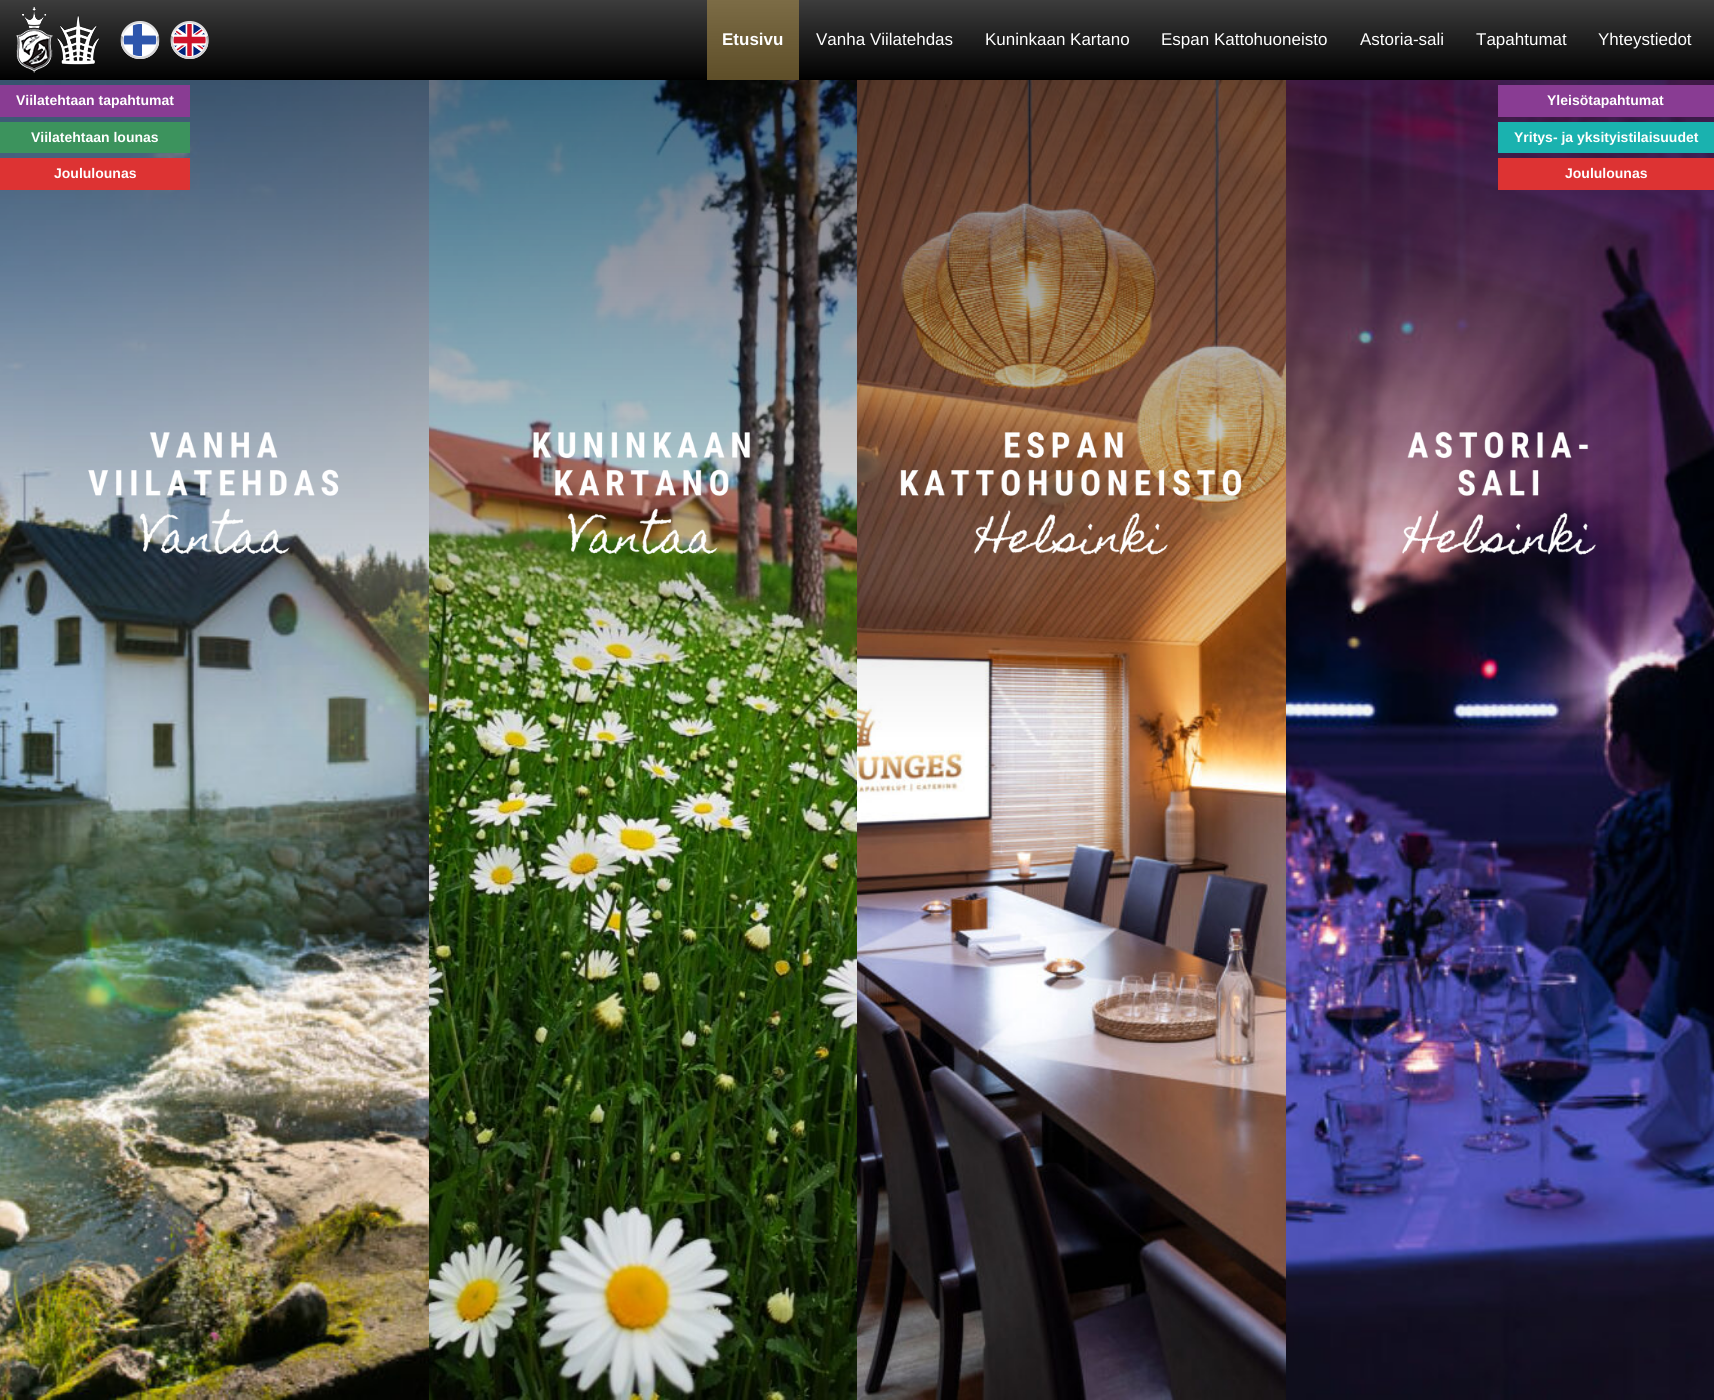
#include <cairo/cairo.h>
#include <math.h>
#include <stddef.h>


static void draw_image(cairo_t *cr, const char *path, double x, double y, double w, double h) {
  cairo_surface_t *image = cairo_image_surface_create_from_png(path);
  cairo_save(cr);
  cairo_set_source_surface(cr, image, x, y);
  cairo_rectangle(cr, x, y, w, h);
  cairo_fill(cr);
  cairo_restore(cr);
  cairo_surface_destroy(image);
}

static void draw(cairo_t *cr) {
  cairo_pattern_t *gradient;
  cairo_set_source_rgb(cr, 1, 1, 1);
  cairo_paint(cr);
  gradient = cairo_pattern_create_linear(857, 0, 857, 80);
  cairo_pattern_add_color_stop_rgba(gradient, 0, 60 / 255.0, 60 / 255.0, 60 / 255.0, 1);
  cairo_pattern_add_color_stop_rgba(gradient, 1, 0, 0, 0, 1);
  cairo_set_source(cr, gradient);
  cairo_pattern_destroy(gradient);
  cairo_rectangle(cr, 0, 0, 1714, 80);
  cairo_fill(cr);
  gradient = cairo_pattern_create_linear(857, 0, 857, 80);
  cairo_pattern_add_color_stop_rgba(gradient, 0, 124 / 255.0, 108 / 255.0, 70 / 255.0, 1);
  cairo_pattern_add_color_stop_rgba(gradient, 1, 94 / 255.0, 78 / 255.0, 40 / 255.0, 1);
  cairo_set_source(cr, gradient);
  cairo_pattern_destroy(gradient);
  cairo_rectangle(cr, 707, 0, 92, 80);
  cairo_fill(cr);
  draw_image(cr, "images/1.png", 16, 7, 84, 66);
  draw_image(cr, "images/2.png", 120, 21, 40, 38);
  draw_image(cr, "images/3.png", 170, 21, 39, 38);
  draw_image(cr, "images/4.png", 0, 80, 429, 1320);
  draw_image(cr, "images/5.png", 88, 432, 251, 123);
  cairo_set_source_rgb(cr, 137 / 255.0, 60 / 255.0, 147 / 255.0);
  cairo_rectangle(cr, 0, 85, 190, 32);
  cairo_fill(cr);
  cairo_set_source_rgb(cr, 60 / 255.0, 147 / 255.0, 93 / 255.0);
  cairo_rectangle(cr, 0, 122, 190, 31);
  cairo_fill(cr);
  cairo_set_source_rgb(cr, 221 / 255.0, 51 / 255.0, 51 / 255.0);
  cairo_rectangle(cr, 0, 158, 190, 32);
  cairo_fill(cr);
  draw_image(cr, "images/6.png", 429, 80, 428, 1320);
  draw_image(cr, "images/7.png", 533, 432, 217, 123);
  draw_image(cr, "images/8.png", 857, 80, 429, 1320);
  draw_image(cr, "images/9.png", 900, 431, 342, 124);
  draw_image(cr, "images/10.png", 1286, 80, 428, 1320);
  draw_image(cr, "images/11.png", 1402, 431, 194, 124);
  cairo_set_source_rgb(cr, 137 / 255.0, 60 / 255.0, 147 / 255.0);
  cairo_rectangle(cr, 1498, 85, 216, 32);
  cairo_fill(cr);
  cairo_set_source_rgb(cr, 26 / 255.0, 178 / 255.0, 175 / 255.0);
  cairo_rectangle(cr, 1498, 122, 216, 31);
  cairo_fill(cr);
  cairo_set_source_rgb(cr, 221 / 255.0, 51 / 255.0, 51 / 255.0);
  cairo_rectangle(cr, 1498, 158, 216, 32);
  cairo_fill(cr);
  cairo_select_font_face(cr, "Liberation Sans", CAIRO_FONT_SLANT_NORMAL, CAIRO_FONT_WEIGHT_BOLD);
  cairo_set_font_size(cr, 17);
  cairo_set_source_rgb(cr, 1, 1, 1);
  cairo_move_to(cr, 722, 45);
  cairo_show_text(cr, "Etusivu");
  cairo_select_font_face(cr, "Liberation Sans", CAIRO_FONT_SLANT_NORMAL, CAIRO_FONT_WEIGHT_NORMAL);
  cairo_move_to(cr, 816, 45);
  cairo_show_text(cr, "Vanha Viilatehdas");
  cairo_move_to(cr, 985, 45);
  cairo_show_text(cr, "Kuninkaan Kartano");
  cairo_move_to(cr, 1161, 45);
  cairo_show_text(cr, "Espan Kattohuoneisto");
  cairo_move_to(cr, 1360, 45);
  cairo_show_text(cr, "Astoria-sali");
  cairo_move_to(cr, 1476, 45);
  cairo_show_text(cr, "Tapahtumat");
  cairo_move_to(cr, 1598, 45);
  cairo_show_text(cr, "Yhteystiedot");
  cairo_select_font_face(cr, "Liberation Sans", CAIRO_FONT_SLANT_NORMAL, CAIRO_FONT_WEIGHT_BOLD);
  cairo_set_font_size(cr, 14);
  cairo_move_to(cr, 16, 105);
  cairo_show_text(cr, "Viilatehtaan tapahtumat");
  cairo_move_to(cr, 31, 142);
  cairo_show_text(cr, "Viilatehtaan lounas");
  cairo_move_to(cr, 54, 178);
  cairo_show_text(cr, "Joululounas");
  cairo_move_to(cr, 1547, 105);
  cairo_show_text(cr, "Yleisötapahtumat");
  cairo_move_to(cr, 1514, 142);
  cairo_show_text(cr, "Yritys- ja yksityistilaisuudet");
  cairo_move_to(cr, 1565, 178);
  cairo_show_text(cr, "Joululounas");
}

int main(void) {
  cairo_surface_t *surface = cairo_image_surface_create(CAIRO_FORMAT_RGB24, 1714, 1400);
  cairo_t *cr = cairo_create(surface);
  cairo_font_options_t *options = cairo_font_options_create();
  cairo_font_options_set_hint_metrics(options, CAIRO_HINT_METRICS_OFF);
  cairo_font_options_set_hint_style(options, CAIRO_HINT_STYLE_NONE);
  cairo_set_font_options(cr, options);
  cairo_set_miter_limit(cr, 4);
  draw(cr);
  cairo_surface_write_to_png(surface, "out.png");
  cairo_font_options_destroy(options);
  cairo_destroy(cr);
  cairo_surface_destroy(surface);
  return 0;
}
